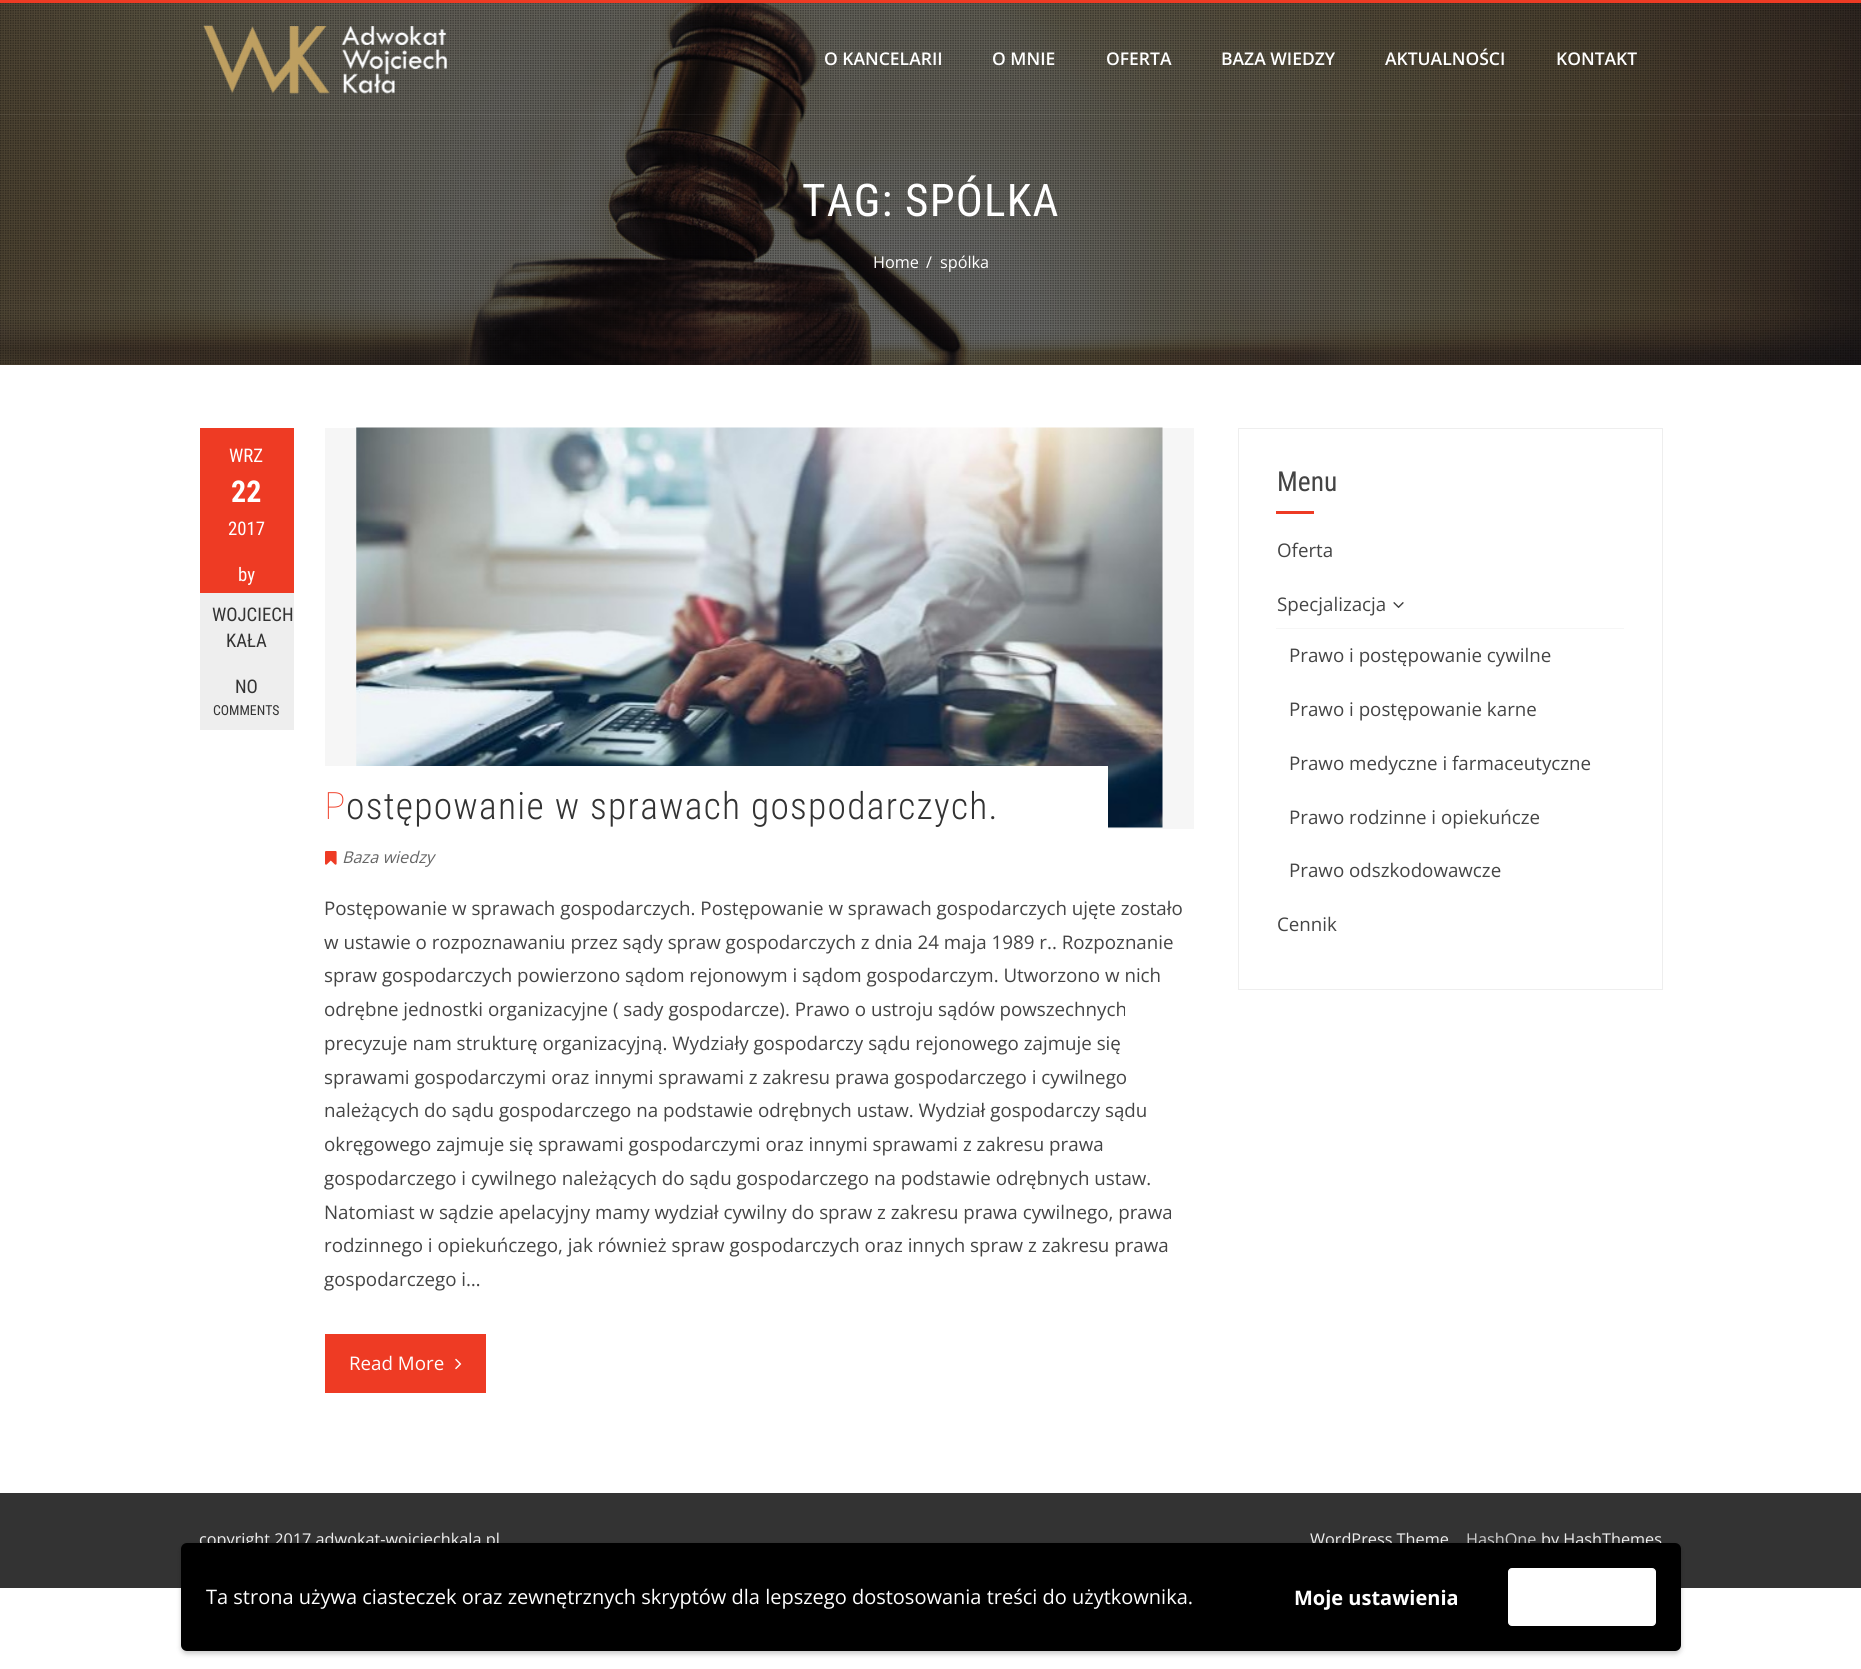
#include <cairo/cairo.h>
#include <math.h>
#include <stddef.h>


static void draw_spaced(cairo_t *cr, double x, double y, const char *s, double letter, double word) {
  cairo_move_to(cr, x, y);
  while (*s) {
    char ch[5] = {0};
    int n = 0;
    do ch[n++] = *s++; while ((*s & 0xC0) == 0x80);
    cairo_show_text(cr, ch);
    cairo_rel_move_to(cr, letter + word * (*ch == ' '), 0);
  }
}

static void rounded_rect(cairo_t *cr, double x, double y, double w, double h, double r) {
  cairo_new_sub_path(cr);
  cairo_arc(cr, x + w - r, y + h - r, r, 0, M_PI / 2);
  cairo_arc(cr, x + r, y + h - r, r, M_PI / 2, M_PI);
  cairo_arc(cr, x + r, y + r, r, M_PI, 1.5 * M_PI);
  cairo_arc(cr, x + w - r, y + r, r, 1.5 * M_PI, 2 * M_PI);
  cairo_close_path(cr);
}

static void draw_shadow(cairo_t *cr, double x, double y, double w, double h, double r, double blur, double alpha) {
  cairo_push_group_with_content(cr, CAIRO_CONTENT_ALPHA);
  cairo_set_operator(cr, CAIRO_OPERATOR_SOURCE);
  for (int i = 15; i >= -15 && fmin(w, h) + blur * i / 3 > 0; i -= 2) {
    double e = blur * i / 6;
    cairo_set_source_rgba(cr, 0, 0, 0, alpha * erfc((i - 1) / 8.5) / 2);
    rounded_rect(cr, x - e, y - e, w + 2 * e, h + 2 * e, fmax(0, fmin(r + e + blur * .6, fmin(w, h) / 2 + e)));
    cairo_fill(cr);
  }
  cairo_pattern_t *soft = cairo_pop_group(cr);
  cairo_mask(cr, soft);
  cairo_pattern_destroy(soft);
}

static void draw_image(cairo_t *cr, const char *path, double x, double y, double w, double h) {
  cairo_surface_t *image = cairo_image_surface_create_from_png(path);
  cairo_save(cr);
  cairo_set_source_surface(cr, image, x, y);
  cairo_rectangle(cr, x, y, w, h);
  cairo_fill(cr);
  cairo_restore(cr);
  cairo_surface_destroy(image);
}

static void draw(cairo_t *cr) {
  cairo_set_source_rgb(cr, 1, 1, 1);
  cairo_paint(cr);
  cairo_set_source_rgb(cr, 238 / 255.0, 59 / 255.0, 36 / 255.0);
  cairo_rectangle(cr, 0, 0, 1861, 3);
  cairo_fill(cr);
  draw_image(cr, "images/2.png", 0, 3, 1861, 362);
  draw_image(cr, "images/3.png", 0, 3, 1861, 362);
  cairo_set_source_rgba(cr, 1, 1, 1, 0.05);
  cairo_rectangle(cr, 0, 114, 1861, 1);
  cairo_fill(cr);
  draw_image(cr, "images/1.png", 203, 25, 244, 69);
  cairo_set_source_rgb(cr, 238 / 255.0, 59 / 255.0, 36 / 255.0);
  cairo_rectangle(cr, 200, 428, 94, 165);
  cairo_fill(cr);
  cairo_set_source_rgb(cr, 238 / 255.0, 238 / 255.0, 238 / 255.0);
  cairo_rectangle(cr, 200, 593, 94, 137);
  cairo_fill(cr);
  cairo_set_source_rgb(cr, 246 / 255.0, 246 / 255.0, 246 / 255.0);
  cairo_rectangle(cr, 325, 428, 869, 401);
  cairo_fill(cr);
  draw_image(cr, "images/4.png", 356, 427, 807, 401);
  cairo_set_source_rgb(cr, 1, 1, 1);
  cairo_rectangle(cr, 325, 766, 783, 63);
  cairo_fill(cr);
  draw_image(cr, "images/5.png", 325, 851, 12, 14);
  cairo_set_source_rgb(cr, 238 / 255.0, 59 / 255.0, 36 / 255.0);
  cairo_rectangle(cr, 325, 1334, 161, 59);
  cairo_fill(cr);
  draw_image(cr, "images/6.png", 455, 1358, 7, 12);
  cairo_rectangle(cr, 1238.5, 428.5, 424, 561);
  cairo_set_source_rgb(cr, 238 / 255.0, 238 / 255.0, 238 / 255.0);
  cairo_set_line_width(cr, 1);
  cairo_stroke(cr);
  cairo_set_source_rgb(cr, 238 / 255.0, 59 / 255.0, 36 / 255.0);
  cairo_rectangle(cr, 1276, 511, 38, 3);
  cairo_fill(cr);
  draw_image(cr, "images/7.png", 1393, 602, 11, 6);
  cairo_set_source_rgb(cr, 246 / 255.0, 246 / 255.0, 246 / 255.0);
  cairo_rectangle(cr, 1276, 628, 348, 1);
  cairo_fill(cr);
  cairo_set_source_rgb(cr, 51 / 255.0, 51 / 255.0, 51 / 255.0);
  cairo_rectangle(cr, 0, 1493, 1861, 95);
  cairo_fill(cr);
  cairo_set_source_rgb(cr, 0, 0, 0);
  draw_shadow(cr, 181, 1545, 1500, 109, 6, 2.5, 0.2);
  cairo_select_font_face(cr, "Open Sans SemiBold", CAIRO_FONT_SLANT_NORMAL, CAIRO_FONT_WEIGHT_NORMAL);
  cairo_set_font_size(cr, 17.5);
  cairo_set_source_rgb(cr, 1, 1, 1);
  cairo_move_to(cr, 824, 65);
  cairo_show_text(cr, "O KANCELARII");
  cairo_move_to(cr, 992, 65);
  cairo_show_text(cr, "O MNIE");
  cairo_move_to(cr, 1106, 65);
  cairo_show_text(cr, "OFERTA");
  cairo_move_to(cr, 1221, 65);
  cairo_show_text(cr, "BAZA WIEDZY");
  cairo_move_to(cr, 1385, 65);
  cairo_show_text(cr, "AKTUALNOŚCI");
  cairo_move_to(cr, 1556, 65);
  cairo_show_text(cr, "KONTAKT");
  cairo_select_font_face(cr, "Roboto Condensed", CAIRO_FONT_SLANT_NORMAL, CAIRO_FONT_WEIGHT_NORMAL);
  cairo_set_font_size(cr, 45);
  draw_spaced(cr, 802, 216, "TAG: SPÓLKA", 1.25, 0);
  cairo_select_font_face(cr, "Open Sans", CAIRO_FONT_SLANT_NORMAL, CAIRO_FONT_WEIGHT_NORMAL);
  cairo_set_font_size(cr, 16.25);
  cairo_move_to(cr, 873, 268);
  cairo_show_text(cr, "Home");
  cairo_move_to(cr, 926, 268);
  cairo_show_text(cr, "/");
  cairo_move_to(cr, 940, 268);
  cairo_show_text(cr, "spólka");
  cairo_select_font_face(cr, "Roboto Condensed", CAIRO_FONT_SLANT_NORMAL, CAIRO_FONT_WEIGHT_NORMAL);
  cairo_set_font_size(cr, 18.75);
  cairo_move_to(cr, 229, 462);
  cairo_show_text(cr, "WRZ");
  cairo_select_font_face(cr, "Roboto Condensed", CAIRO_FONT_SLANT_NORMAL, CAIRO_FONT_WEIGHT_BOLD);
  cairo_set_font_size(cr, 30);
  cairo_move_to(cr, 231, 502);
  cairo_show_text(cr, "22");
  cairo_select_font_face(cr, "Roboto Condensed", CAIRO_FONT_SLANT_NORMAL, CAIRO_FONT_WEIGHT_NORMAL);
  cairo_set_font_size(cr, 18.75);
  cairo_move_to(cr, 228, 535);
  cairo_show_text(cr, "2017");
  cairo_move_to(cr, 238, 581);
  cairo_show_text(cr, "by");
  cairo_set_source_rgb(cr, 51 / 255.0, 51 / 255.0, 51 / 255.0);
  cairo_move_to(cr, 212, 621);
  cairo_show_text(cr, "WOJCIECH");
  cairo_move_to(cr, 226, 647);
  cairo_show_text(cr, "KAŁA");
  cairo_move_to(cr, 235, 693);
  cairo_show_text(cr, "NO");
  cairo_set_font_size(cr, 13.75);
  cairo_move_to(cr, 213, 715);
  cairo_show_text(cr, "COMMENTS");
  cairo_select_font_face(cr, "Noto Sans Thin", CAIRO_FONT_SLANT_NORMAL, CAIRO_FONT_WEIGHT_NORMAL);
  cairo_set_font_size(cr, 37.5);
  cairo_set_source_rgb(cr, 238 / 255.0, 59 / 255.0, 36 / 255.0);
  draw_spaced(cr, 324, 819, "P", 1.25, 0);
  cairo_select_font_face(cr, "Roboto Condensed Light", CAIRO_FONT_SLANT_NORMAL, CAIRO_FONT_WEIGHT_NORMAL);
  cairo_set_source_rgb(cr, 51 / 255.0, 51 / 255.0, 51 / 255.0);
  draw_spaced(cr, 346, 819, "ostępowanie w sprawach gospodarczych.", 1.25, 0);
  cairo_select_font_face(cr, "Open Sans", CAIRO_FONT_SLANT_ITALIC, CAIRO_FONT_WEIGHT_NORMAL);
  cairo_set_font_size(cr, 16.25);
  cairo_set_source_rgb(cr, 102 / 255.0, 102 / 255.0, 102 / 255.0);
  cairo_move_to(cr, 342, 863);
  cairo_show_text(cr, "Baza wiedzy");
  cairo_select_font_face(cr, "Open Sans", CAIRO_FONT_SLANT_NORMAL, CAIRO_FONT_WEIGHT_NORMAL);
  cairo_set_font_size(cr, 18.75);
  cairo_set_source_rgb(cr, 68 / 255.0, 68 / 255.0, 68 / 255.0);
  cairo_move_to(cr, 324, 915);
  cairo_show_text(cr, "Postępowanie w sprawach gospodarczych. Postępowanie w sprawach gospodarczych ujęte zostało");
  cairo_move_to(cr, 324, 949);
  cairo_show_text(cr, "w ustawie o rozpoznawaniu przez sądy spraw gospodarczych z dnia 24 maja 1989 r.. Rozpoznanie");
  cairo_move_to(cr, 324, 982);
  cairo_show_text(cr, "spraw gospodarczych powierzono sądom rejonowym i sądom gospodarczym. Utworzono w nich");
  cairo_move_to(cr, 324, 1016);
  cairo_show_text(cr, "odrębne jednostki organizacyjne ( sady gospodarcze). Prawo o ustroju sądów powszechnych");
  cairo_move_to(cr, 324, 1050);
  cairo_show_text(cr, "precyzuje nam strukturę organizacyjną. Wydziały gospodarczy sądu rejonowego zajmuje się");
  cairo_move_to(cr, 324, 1084);
  cairo_show_text(cr, "sprawami gospodarczymi oraz innymi sprawami z zakresu prawa gospodarczego i cywilnego");
  cairo_move_to(cr, 324, 1117);
  cairo_show_text(cr, "należących do sądu gospodarczego na podstawie odrębnych ustaw. Wydział gospodarczy sądu");
  cairo_move_to(cr, 324, 1151);
  cairo_show_text(cr, "okręgowego zajmuje się sprawami gospodarczymi oraz innymi sprawami z zakresu prawa");
  cairo_move_to(cr, 324, 1185);
  cairo_show_text(cr, "gospodarczego i cywilnego należących do sądu gospodarczego na podstawie odrębnych ustaw.");
  cairo_move_to(cr, 324, 1219);
  cairo_show_text(cr, "Natomiast w sądzie apelacyjny mamy wydział cywilny do spraw z zakresu prawa cywilnego, prawa");
  cairo_move_to(cr, 324, 1252);
  cairo_show_text(cr, "rodzinnego i opiekuńczego, jak również spraw gospodarczych oraz innych spraw z zakresu prawa");
  cairo_move_to(cr, 324, 1286);
  cairo_show_text(cr, "gospodarczego i…");
  cairo_set_source_rgb(cr, 1, 1, 1);
  cairo_move_to(cr, 349, 1370);
  cairo_show_text(cr, "Read More");
  cairo_select_font_face(cr, "Roboto Condensed", CAIRO_FONT_SLANT_NORMAL, CAIRO_FONT_WEIGHT_NORMAL);
  cairo_set_font_size(cr, 27.5);
  cairo_set_source_rgb(cr, 68 / 255.0, 68 / 255.0, 68 / 255.0);
  cairo_move_to(cr, 1277, 491);
  cairo_show_text(cr, "Menu");
  cairo_select_font_face(cr, "Open Sans", CAIRO_FONT_SLANT_NORMAL, CAIRO_FONT_WEIGHT_NORMAL);
  cairo_set_font_size(cr, 18.75);
  cairo_move_to(cr, 1277, 557);
  cairo_show_text(cr, "Oferta");
  cairo_move_to(cr, 1277, 611);
  cairo_show_text(cr, "Specjalizacja");
  cairo_move_to(cr, 1289, 662);
  cairo_show_text(cr, "Prawo i postępowanie cywilne");
  cairo_move_to(cr, 1289, 716);
  cairo_show_text(cr, "Prawo i postępowanie karne");
  cairo_move_to(cr, 1289, 770);
  cairo_show_text(cr, "Prawo medyczne i farmaceutyczne");
  cairo_move_to(cr, 1289, 824);
  cairo_show_text(cr, "Prawo rodzinne i opiekuńcze");
  cairo_move_to(cr, 1289, 877);
  cairo_show_text(cr, "Prawo odszkodowawcze");
  cairo_move_to(cr, 1277, 931);
  cairo_show_text(cr, "Cennik");
  cairo_set_font_size(cr, 16.25);
  cairo_set_source_rgb(cr, 238 / 255.0, 238 / 255.0, 238 / 255.0);
  cairo_move_to(cr, 199, 1545);
  cairo_show_text(cr, "copyright 2017 adwokat-wojciechkala.pl");
  cairo_move_to(cr, 1310, 1545);
  cairo_show_text(cr, "WordPress Theme");
  cairo_set_source_rgb(cr, 204 / 255.0, 204 / 255.0, 204 / 255.0);
  cairo_move_to(cr, 1466, 1545);
  cairo_show_text(cr, "HashOne");
  cairo_set_source_rgb(cr, 238 / 255.0, 238 / 255.0, 238 / 255.0);
  cairo_move_to(cr, 1541, 1545);
  cairo_show_text(cr, "by HashThemes");
  cairo_set_source_rgb(cr, 0, 0, 0);
  rounded_rect(cr, 181, 1543, 1500, 108, 6);
  cairo_fill(cr);
  cairo_set_font_size(cr, 20);
  cairo_set_source_rgb(cr, 1, 1, 1);
  cairo_move_to(cr, 206, 1604);
  cairo_show_text(cr, "Ta strona używa ciasteczek oraz zewnętrznych skryptów dla lepszego dostosowania treści do użytkownika.");
  cairo_select_font_face(cr, "Open Sans", CAIRO_FONT_SLANT_NORMAL, CAIRO_FONT_WEIGHT_BOLD);
  cairo_move_to(cr, 1294, 1605);
  cairo_show_text(cr, "Moje ustawienia");
  rounded_rect(cr, 1508.5, 1568.5, 147, 57, 3.5);
  cairo_fill_preserve(cr);
  cairo_stroke(cr);
}

int main(void) {
  cairo_surface_t *surface = cairo_image_surface_create(CAIRO_FORMAT_RGB24, 1861, 1669);
  cairo_t *cr = cairo_create(surface);
  cairo_font_options_t *options = cairo_font_options_create();
  cairo_font_options_set_hint_metrics(options, CAIRO_HINT_METRICS_OFF);
  cairo_font_options_set_hint_style(options, CAIRO_HINT_STYLE_NONE);
  cairo_set_font_options(cr, options);
  cairo_set_miter_limit(cr, 4);
  draw(cr);
  cairo_surface_write_to_png(surface, "out.png");
  cairo_font_options_destroy(options);
  cairo_destroy(cr);
  cairo_surface_destroy(surface);
  return 0;
}
